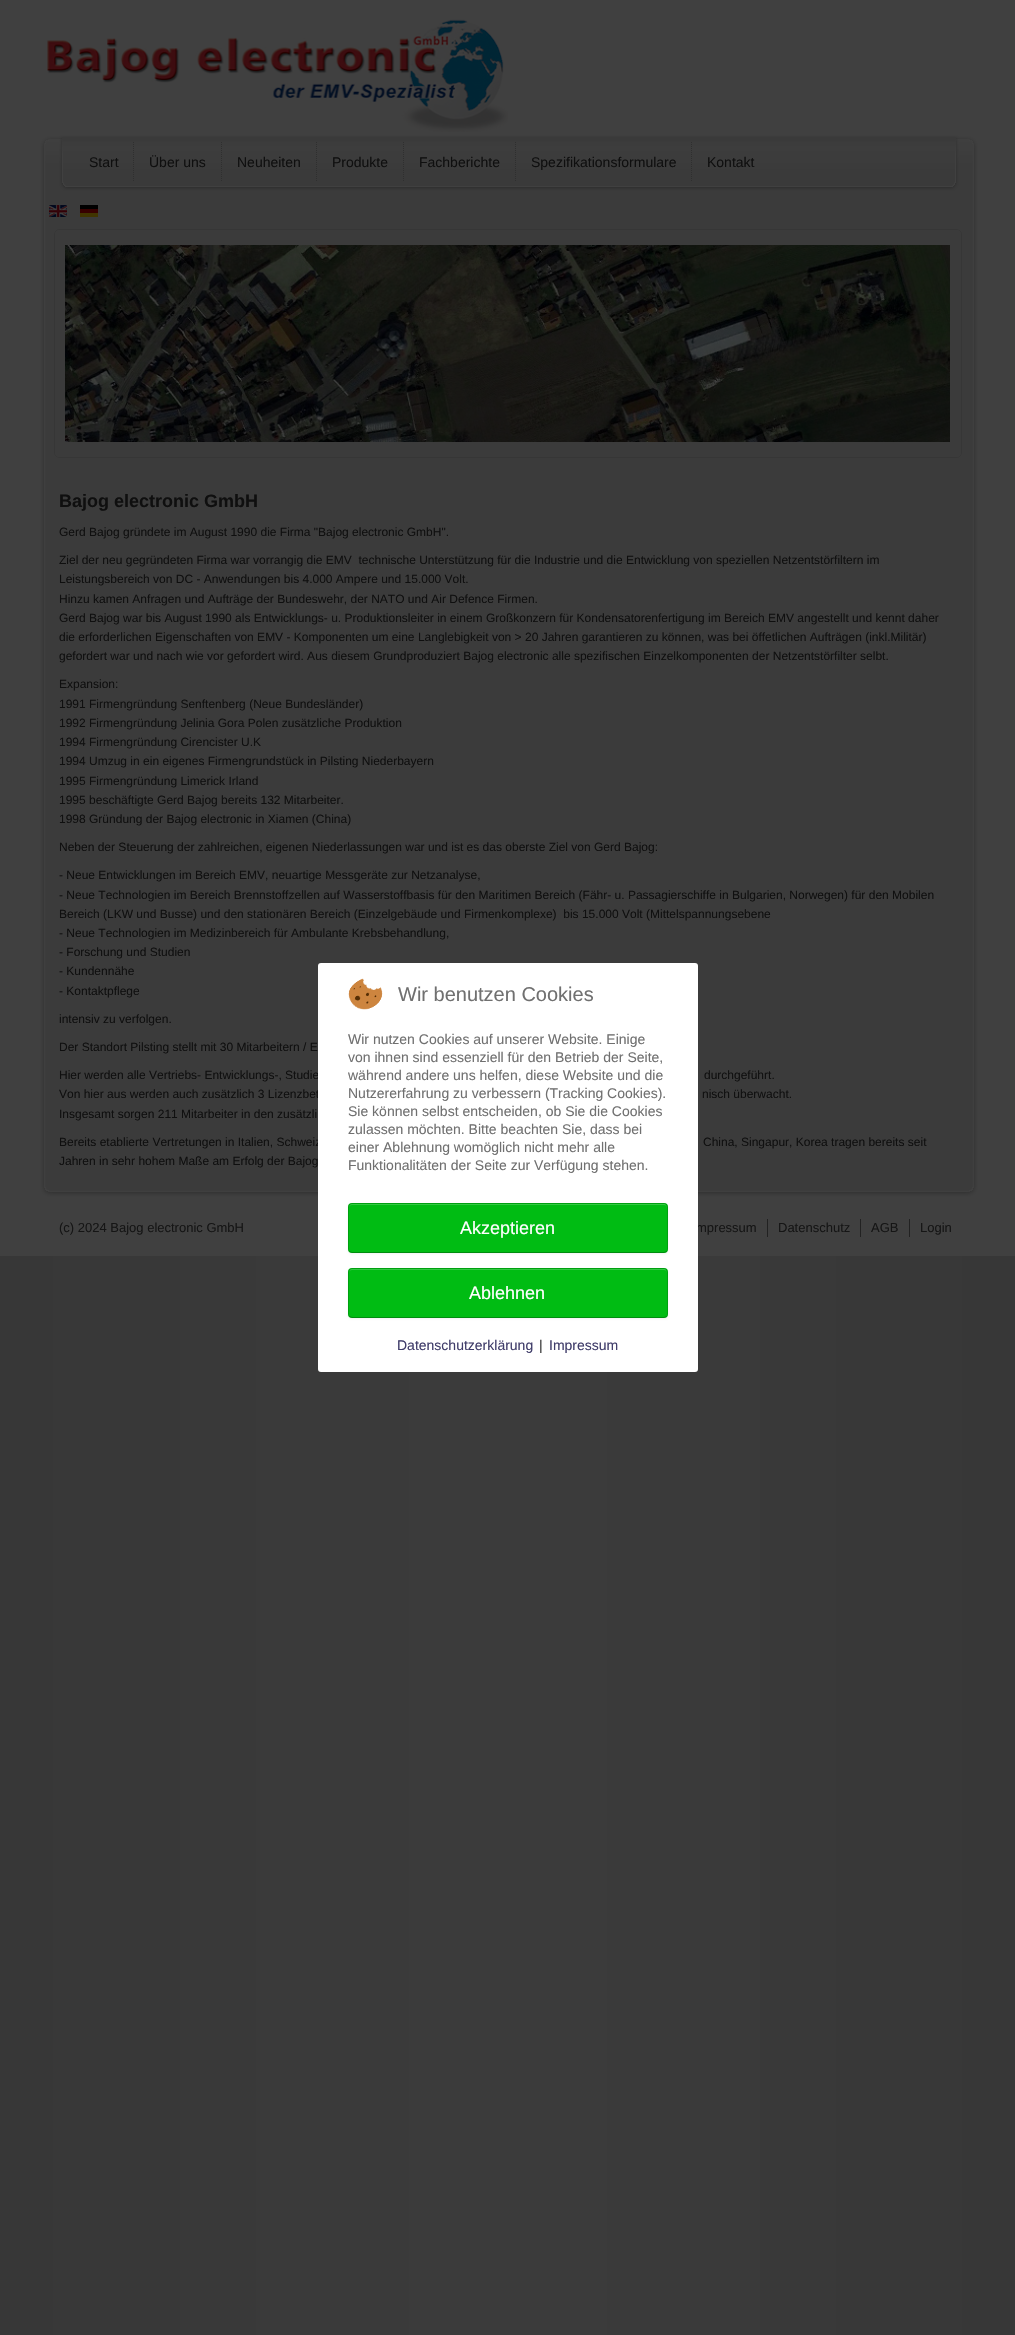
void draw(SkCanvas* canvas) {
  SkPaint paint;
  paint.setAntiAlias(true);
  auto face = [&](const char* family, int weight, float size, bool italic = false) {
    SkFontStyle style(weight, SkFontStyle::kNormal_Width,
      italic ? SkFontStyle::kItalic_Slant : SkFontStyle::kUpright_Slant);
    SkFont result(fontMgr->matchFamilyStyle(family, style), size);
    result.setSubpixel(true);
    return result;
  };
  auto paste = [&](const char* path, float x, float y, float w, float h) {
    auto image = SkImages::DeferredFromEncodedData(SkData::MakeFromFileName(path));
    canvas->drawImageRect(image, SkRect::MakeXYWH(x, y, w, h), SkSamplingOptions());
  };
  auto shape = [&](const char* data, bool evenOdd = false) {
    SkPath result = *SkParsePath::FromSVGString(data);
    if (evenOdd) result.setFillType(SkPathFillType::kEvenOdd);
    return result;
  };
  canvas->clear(0xffffffff);
  paste("img/1.png", 0, 1256, 1015, 1079);
  paint.setColor(0xff404040);
  canvas->drawRect(SkRect::MakeXYWH(0, 0, 1015, 1256), paint);
  paste("img/2.png", 40, 135, 938, 60);
  paste("img/3.png", 47, 19, 461, 113);
  paint.setStroke(true);
  paint.setStrokeWidth(1);
  paint.setColor(0xff2f2f2f);
  paint.setPathEffect(SkDashPathEffect::Make({{1, 1}}, 0));
  canvas->drawPath(shape("M133.5 142V182"), paint);
  paint.setPathEffect(nullptr);
  paint.setPathEffect(SkDashPathEffect::Make({{1, 1}}, 0));
  canvas->drawPath(shape("M221.5 142V182"), paint);
  paint.setPathEffect(nullptr);
  paint.setPathEffect(SkDashPathEffect::Make({{1, 1}}, 0));
  canvas->drawPath(shape("M316.5 142V182"), paint);
  paint.setPathEffect(nullptr);
  paint.setPathEffect(SkDashPathEffect::Make({{1, 1}}, 0));
  canvas->drawPath(shape("M403.5 142V182"), paint);
  paint.setPathEffect(nullptr);
  paint.setPathEffect(SkDashPathEffect::Make({{1, 1}}, 0));
  canvas->drawPath(shape("M515.5 142V182"), paint);
  paint.setPathEffect(nullptr);
  paint.setPathEffect(SkDashPathEffect::Make({{1, 1}}, 0));
  canvas->drawPath(shape("M691.5 142V182"), paint);
  paint.setPathEffect(nullptr);
  paste("img/4.png", 40, 195, 938, 24);
  paste("img/5.png", 49, 205, 18, 12);
  paste("img/6.png", 80, 205, 18, 12);
  paste("img/7.png", 40, 219, 938, 5);
  paste("img/8.png", 40, 224, 938, 239);
  paint.setColor(0xff363636);
  canvas->drawRoundRect(SkRect::MakeXYWH(54.5f, 229.5f, 907, 228), 4.5f, 4.5f, paint);
  paste("img/9.png", 65, 245, 885, 197);
  paste("img/10.png", 40, 463, 938, 717);
  paste("img/11.png", 40, 1180, 938, 17);
  paint.setStroke(false);
  {
    const struct { float x, y, w, h; SkColor color; } items[] = {
      {767, 1219, 1, 18, 0xff222222},
      {860, 1219, 1, 18, 0xff222222},
      {909, 1219, 1, 18, 0xff222222},
    };
    for (auto [x, y, w, h, color] : items) {
      paint.setColor(color);
      canvas->drawRect(SkRect::MakeXYWH(x, y, w, h), paint);
    }
  }
  auto f0 = face("Liberation Sans", 400, 14);
  paint.setColor(0xff0f0f0f);
  {
    const struct { const char* s; float x, y; } items[] = {
      {"Start", 89, 167},
      {"Über uns", 149, 167},
      {"Neuheiten", 237, 167},
      {"Produkte", 332, 167},
      {"Fachberichte", 419, 167},
      {"Spezifikationsformulare", 531, 167},
      {"Kontakt", 707, 167},
    };
    for (auto [s, x, y] : items) {
      canvas->drawString(s, x, y, f0, paint);
    }
  }
  auto f1 = face("Liberation Sans", 700, 18);
  canvas->drawString("Bajog electronic GmbH", 59, 507, f1, paint);
  auto f2 = face("Liberation Sans", 400, 12);
  {
    const struct { const char* s; float x, y; } items[] = {
      {"Gerd Bajog gründete im August 1990 die Firma \"Bajog electronic GmbH\".", 59, 536},
      {"Ziel der neu gegründeten Firma war vorrangig die EMV  technische Unterstützung für die Industrie und die Entwicklung von speziellen Netzentstörfiltern im", 59, 564},
      {"Leistungsbereich von DC - Anwendungen bis 4.000 Ampere und 15.000 Volt.", 59, 583},
      {"Hinzu kamen Anfragen und Aufträge der Bundeswehr, der NATO und Air Defence Firmen.", 59, 603},
      {"Gerd Bajog war bis August 1990 als Entwicklungs- u. Produktionsleiter in einem Großkonzern für Kondensatorenfertigung im Bereich EMV angestellt und kennt daher", 59, 622},
      {"die erforderlichen Eigenschaften von EMV - Komponenten um eine Langlebigkeit von > 20 Jahren garantieren zu können, was bei öffetlichen Aufträgen (inkl.Militär)", 59, 641},
      {"gefordert war und nach wie vor gefordert wird. Aus diesem Grundproduziert Bajog electronic alle spezifischen Einzelkomponenten der Netzentstörfilter selbt.", 59, 660},
      {"Expansion:", 59, 688},
      {"1991 Firmengründung Senftenberg (Neue Bundesländer)", 59, 708},
      {"1992 Firmengründung Jelinia Gora Polen zusätzliche Produktion", 59, 727},
      {"1994 Firmengründung Cirencister U.K", 59, 746},
      {"1994 Umzug in ein eigenes Firmengrundstück in Pilsting Niederbayern", 59, 765},
      {"1995 Firmengründung Limerick Irland", 59, 785},
      {"1995 beschäftigte Gerd Bajog bereits 132 Mitarbeiter.", 59, 804},
      {"1998 Gründung der Bajog electronic in Xiamen (China)", 59, 823},
      {"Neben der Steuerung der zahlreichen, eigenen Niederlassungen war und ist es das oberste Ziel von Gerd Bajog:", 59, 851},
      {"- Neue Entwicklungen im Bereich EMV, neuartige Messgeräte zur Netzanalyse,", 59, 879},
      {"- Neue Technologien im Bereich Brennstoffzellen auf Wasserstoffbasis für den Maritimen Bereich (Fähr- u. Passagierschiffe in Bulgarien, Norwegen) für den Mobilen", 59, 899},
      {"Bereich (LKW und Busse) und den stationären Bereich (Einzelgebäude und Firmenkomplexe)  bis 15.000 Volt (Mittelspannungsebene", 59, 918},
      {"- Neue Technologien im Medizinbereich für Ambulante Krebsbehandlung,", 59, 937},
      {"- Forschung und Studien", 59, 956},
      {"- Kundennähe", 59, 975},
      {"- Kontaktpflege", 59, 995},
      {"intensiv zu verfolgen.", 59, 1023},
      {"Der Standort Pilsting stellt mit 30 Mitarbeitern / E", 59, 1051},
      {"Hier werden alle Vertriebs- Entwicklungs-, Studie", 59, 1079},
      {"durchgeführt.", 704, 1079},
      {"Von hier aus werden auch zusätzlich 3 Lizenzbet", 59, 1098},
      {"nisch überwacht.", 702, 1098},
      {"Insgesamt sorgen 211 Mitarbeiter in den zusätzli", 59, 1118},
      {"Bereits etablierte Vertretungen in Italien, Schweiz", 59, 1146},
      {"China, Singapur, Korea tragen bereits seit", 703, 1146},
      {"Jahren in sehr hohem Maße am Erfolg der Bajog", 59, 1165},
    };
    for (auto [s, x, y] : items) {
      canvas->drawString(s, x, y, f2, paint);
    }
  }
  auto f3 = face("Liberation Sans", 400, 13);
  paint.setColor(0xff151515);
  {
    const struct { const char* s; float x, y; } items[] = {
      {"(c) 2024 Bajog electronic GmbH", 59, 1232},
      {"mpressum", 696, 1232},
      {"Datenschutz", 778, 1232},
      {"AGB", 871, 1232},
      {"Login", 920, 1232},
    };
    for (auto [s, x, y] : items) {
      canvas->drawString(s, x, y, f3, paint);
    }
  }
  paint.setColor(0xffffffff);
  canvas->drawRoundRect(SkRect::MakeXYWH(318, 963, 380, 409), 3, 3, paint);
  paste("img/12.png", 348, 978, 35, 32);
  auto f4 = face("Liberation Sans", 400, 20);
  paint.setColor(0xff707070);
  canvas->drawString("Wir benutzen Cookies", 398, 1001, f4, paint);
  {
    const struct { const char* s; float x, y; } items[] = {
      {"Wir nutzen Cookies auf unserer Website. Einige", 348, 1044},
      {"von ihnen sind essenziell für den Betrieb der Seite,", 348, 1062},
      {"während andere uns helfen, diese Website und die", 348, 1080},
      {"Nutzererfahrung zu verbessern (Tracking Cookies).", 348, 1098},
      {"Sie können selbst entscheiden, ob Sie die Cookies", 348, 1116},
      {"zulassen möchten. Bitte beachten Sie, dass bei", 348, 1134},
      {"einer Ablehnung womöglich nicht mehr alle", 348, 1152},
      {"Funktionalitäten der Seite zur Verfügung stehen.", 348, 1170},
    };
    for (auto [s, x, y] : items) {
      canvas->drawString(s, x, y, f0, paint);
    }
  }
  paint.setColor(0x0d000000);
  paint.setMaskFilter(SkMaskFilter::MakeBlur(kNormal_SkBlurStyle, 1));
  canvas->drawRoundRect(SkRect::MakeXYWH(348, 1204, 320, 50), 4, 4, paint);
  paint.setMaskFilter(nullptr);
  paint.setColor(0xff00bc13);
  canvas->drawRoundRect(SkRect::MakeXYWH(348, 1203, 320, 50), 4, 4, paint);
  paint.setColor(0xff33c942);
  canvas->drawPath(shape("M352 1205H664C666 1205 667 1206 667 1208L666 1205L665 1204H352C350 1204 349 1206 349 1208C349 1206 350 1205 352 1205Z"), paint);
  paint.setStroke(true);
  paint.setColor(0x40000000);
  canvas->drawPath(shape("M666.5 1251.5L664 1252.5H352L349.5 1251.5"), paint);
  paint.setColor(0x26000000);
  canvas->drawPath(shape("M349.5 1251.5C349 1251 348.5 1250 348.5 1249V1207C348.5 1206 349 1205 349.5 1204.5C350 1204 351 1203.5 352 1203.5H664C665 1203.5 666 1204 666.5 1204.5C667 1205 667.5 1206 667.5 1207V1249C667.5 1250 667 1251 666.5 1251.5"), paint);
  auto f5 = face("Liberation Sans", 400, 18);
  paint.setStroke(false);
  paint.setColor(0xffffffff);
  canvas->drawString("Akzeptieren", 460, 1234, f5, paint);
  paint.setColor(0x0d000000);
  paint.setMaskFilter(SkMaskFilter::MakeBlur(kNormal_SkBlurStyle, 1));
  canvas->drawRoundRect(SkRect::MakeXYWH(348, 1269, 320, 50), 4, 4, paint);
  paint.setMaskFilter(nullptr);
  paint.setColor(0xff00bc13);
  canvas->drawRoundRect(SkRect::MakeXYWH(348, 1268, 320, 50), 4, 4, paint);
  paint.setColor(0xff33c942);
  canvas->drawPath(shape("M352 1270H664C666 1270 667 1271 667 1273L666 1270L665 1269H352C350 1269 349 1271 349 1273C349 1271 350 1270 352 1270Z"), paint);
  paint.setStroke(true);
  paint.setColor(0x40000000);
  canvas->drawPath(shape("M666.5 1316.5L664 1317.5H352L349.5 1316.5"), paint);
  paint.setColor(0x26000000);
  canvas->drawPath(shape("M349.5 1316.5C349 1316 348.5 1315 348.5 1314V1272C348.5 1271 349 1270 349.5 1269.5C350 1269 351 1268.5 352 1268.5H664C665 1268.5 666 1269 666.5 1269.5C667 1270 667.5 1271 667.5 1272V1314C667.5 1315 667 1316 666.5 1316.5"), paint);
  paint.setStroke(false);
  paint.setColor(0xffffffff);
  canvas->drawString("Ablehnen", 469, 1299, f5, paint);
  paint.setColor(0xff403d6a);
  canvas->drawString("Datenschutzerklärung", 397, 1350, f0, paint);
  paint.setColor(0xff3a3a3a);
  canvas->drawString("|", 539, 1350, f0, paint);
  paint.setColor(0xff403d6a);
  canvas->drawString("Impressum", 549, 1350, f0, paint);
}
